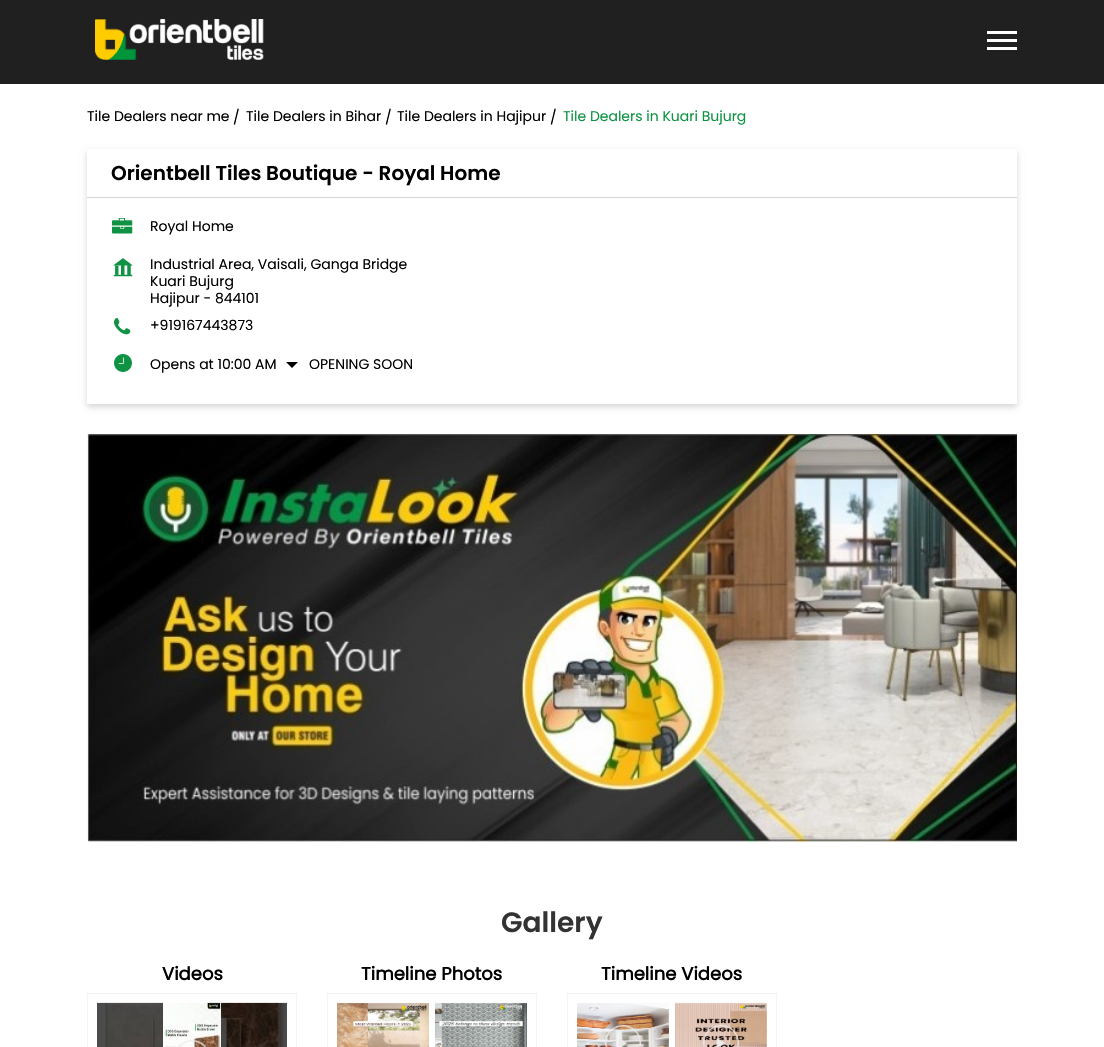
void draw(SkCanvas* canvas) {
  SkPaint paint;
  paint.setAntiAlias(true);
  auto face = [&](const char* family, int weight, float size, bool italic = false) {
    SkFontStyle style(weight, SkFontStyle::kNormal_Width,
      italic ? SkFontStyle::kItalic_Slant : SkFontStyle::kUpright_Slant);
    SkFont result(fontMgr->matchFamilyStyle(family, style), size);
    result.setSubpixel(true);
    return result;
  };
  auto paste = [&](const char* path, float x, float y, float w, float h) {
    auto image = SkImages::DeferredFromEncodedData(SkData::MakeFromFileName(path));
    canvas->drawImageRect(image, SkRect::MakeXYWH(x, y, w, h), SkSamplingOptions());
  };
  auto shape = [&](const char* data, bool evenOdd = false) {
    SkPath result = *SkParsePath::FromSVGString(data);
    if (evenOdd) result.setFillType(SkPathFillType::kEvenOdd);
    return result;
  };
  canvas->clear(0xffffffff);
  paint.setColor(0xff202020);
  canvas->drawRect(SkRect::MakeXYWH(0, 0, 1104, 84), paint);
  paste("img/1.png", 95, 19, 169, 41);
  {
    const struct { float x, y, w, h; SkColor color; } items[] = {
      {987, 39, 30, 3, 0xffffffff},
      {987, 31, 30, 3, 0xffffffff},
      {987, 47, 30, 3, 0xffffffff},
    };
    for (auto [x, y, w, h, color] : items) {
      paint.setColor(color);
      canvas->drawRect(SkRect::MakeXYWH(x, y, w, h), paint);
    }
  }
  canvas->save();
  canvas->clipPath(shape("M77 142H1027V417H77ZM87 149H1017V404H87Z", true), true);
  paint.setColor(0x29000000);
  paint.setMaskFilter(SkMaskFilter::MakeBlur(kNormal_SkBlurStyle, 3));
  canvas->drawRect(SkRect::MakeXYWH(87, 152, 930, 255), paint);
  paint.setMaskFilter(nullptr);
  canvas->restore();
  paint.setColor(0xffd5d5d5);
  canvas->drawRect(SkRect::MakeXYWH(87, 197, 930, 1), paint);
  paste("img/2.png", 112, 218, 21, 16);
  paste("img/3.png", 113, 258, 20, 19);
  paste("img/4.png", 114, 318, 17, 17);
  paste("img/5.png", 114, 354, 18, 18);
  paint.setColor(0xff000000);
  canvas->drawPath(shape("M286 362H298L292 368Z"), paint);
  paste("img/6.png", 87, 434, 930, 408);
  paint.setStroke(true);
  paint.setStrokeWidth(1);
  paint.setColor(0xfff3f3f3);
  canvas->drawRect(SkRect::MakeXYWH(87.5f, 993.5f, 209, 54), paint);
  paste("img/7.png", 97, 1002, 190, 45);
  paste("img/8.png", 178, 1039, 29, 8);
  canvas->drawRect(SkRect::MakeXYWH(327.5f, 993.5f, 209, 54), paint);
  paste("img/9.png", 337, 1002, 92, 45);
  paste("img/10.png", 435, 1002, 92, 45);
  canvas->drawRect(SkRect::MakeXYWH(567.5f, 993.5f, 209, 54), paint);
  paste("img/11.png", 577, 1003, 92, 44);
  paste("img/12.png", 605, 1024, 36, 23);
  paste("img/13.png", 675, 1002, 92, 45);
  paste("img/14.png", 703, 1024, 36, 23);
  auto f0 = face("Poppins", 400, 14);
  paint.setStroke(false);
  paint.setColor(0xff000000);
  {
    const struct { const char* s; float x, y; } items[] = {
      {"Tile Dealers near me", 87, 121},
      {"/", 233, 122},
      {"Tile Dealers in Bihar", 246, 121},
      {"/", 385, 122},
      {"Tile Dealers in Hajipur", 397, 121},
      {"/", 550, 122},
    };
    for (auto [s, x, y] : items) {
      canvas->drawString(s, x, y, f0, paint);
    }
  }
  paint.setColor(0xff0f9243);
  canvas->drawString("Tile Dealers in Kuari Bujurg", 563, 121, f0, paint);
  auto f1 = face("Poppins", 600, 20);
  paint.setColor(0xff000000);
  canvas->drawString("Orientbell Tiles Boutique - Royal Home", 111, 180, f1, paint);
  {
    const struct { const char* s; float x, y; } items[] = {
      {"Royal Home", 150, 231},
      {"Industrial Area, Vaisali, Ganga Bridge", 150, 269},
      {"Kuari Bujurg", 150, 286},
      {"Hajipur - 844101", 150, 303},
      {"+919167443873", 150, 330},
      {"Opens at 10:00 AM", 150, 369},
      {"OPENING SOON", 309, 369},
    };
    for (auto [s, x, y] : items) {
      canvas->drawString(s, x, y, f0, paint);
    }
  }
  auto f2 = face("Poppins", 600, 28);
  paint.setColor(0xff333333);
  canvas->drawString("Gallery", 501, 932, f2, paint);
  auto f3 = face("Poppins", 700, 18);
  paint.setColor(0xff000000);
  {
    const struct { const char* s; float x, y; } items[] = {
      {"Videos", 162, 980},
      {"Timeline Photos", 361, 980},
      {"Timeline Videos", 601, 980},
    };
    for (auto [s, x, y] : items) {
      canvas->drawString(s, x, y, f3, paint);
    }
  }
}
